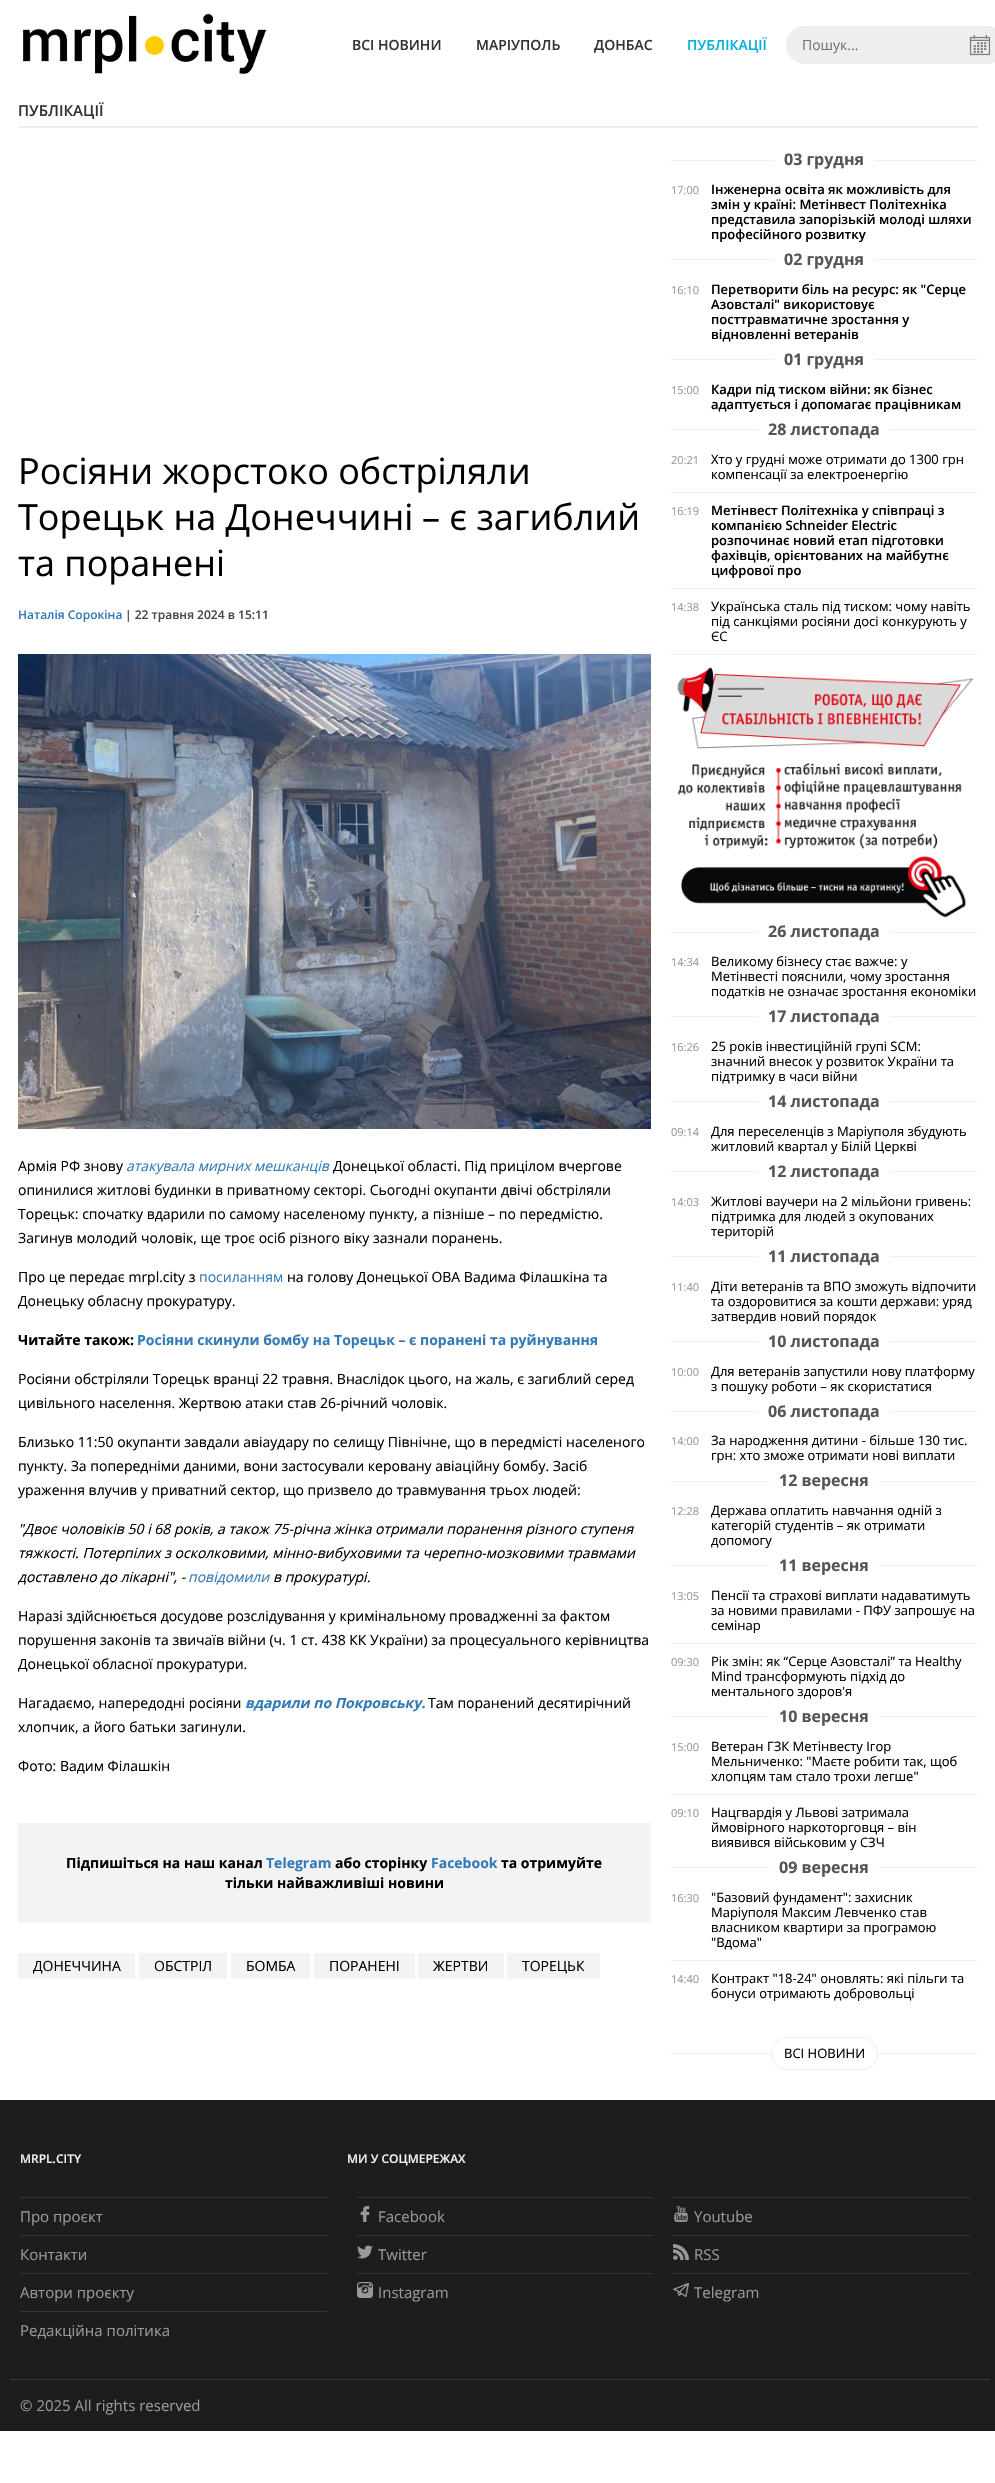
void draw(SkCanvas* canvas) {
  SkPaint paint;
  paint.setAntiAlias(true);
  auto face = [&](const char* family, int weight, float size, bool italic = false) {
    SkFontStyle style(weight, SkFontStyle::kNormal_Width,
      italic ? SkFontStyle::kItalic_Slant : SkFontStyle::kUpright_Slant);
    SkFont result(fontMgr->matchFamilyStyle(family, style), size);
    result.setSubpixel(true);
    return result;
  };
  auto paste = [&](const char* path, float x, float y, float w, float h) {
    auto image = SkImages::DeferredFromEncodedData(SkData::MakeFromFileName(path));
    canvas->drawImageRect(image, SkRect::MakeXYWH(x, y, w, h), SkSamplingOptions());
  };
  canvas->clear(0xffffffff);
  paste("img/1.png", 23, 15, 114, 59);
  paint.setColor(0xffffcc00);
  canvas->drawCircle(154.5f, 45.5f, 9.5f, paint);
  paste("img/2.png", 171, 13, 96, 62);
  paint.setColor(0xffeeeeee);
  canvas->drawRoundRect(SkRect::MakeXYWH(786.5f, 26.5f, 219, 37), 18.5f, 18.5f, paint);
  paint.setStroke(true);
  paint.setStrokeWidth(1);
  canvas->drawRoundRect(SkRect::MakeXYWH(786.5f, 26.5f, 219, 37), 18.5f, 18.5f, paint);
  paste("img/3.png", 969, 34, 22, 22);
  paint.setStroke(false);
  canvas->drawRect(SkRect::MakeXYWH(18, 126, 960, 2), paint);
  paste("img/4.png", 18, 654, 633, 475);
  {
    const struct { float x, y, w, h; SkColor color; } items[] = {
      {18, 1823, 633, 100, 0xfff3f3f3},
      {18, 1953, 117, 26, 0xfff3f3f3},
      {139, 1953, 88, 26, 0xfff3f3f3},
      {231, 1953, 79, 26, 0xfff3f3f3},
      {314, 1953, 101, 26, 0xfff3f3f3},
      {418, 1953, 86, 26, 0xfff3f3f3},
      {507, 1953, 93, 26, 0xfff3f3f3},
      {671, 160, 306, 1, 0xffeeeeee},
      {774, 160, 100, 1, 0xffffffff},
      {671, 259, 306, 1, 0xffeeeeee},
      {774, 259, 100, 1, 0xffffffff},
      {671, 359, 306, 1, 0xffeeeeee},
      {774, 359, 100, 1, 0xffffffff},
      {671, 429, 306, 1, 0xffeeeeee},
      {758, 429, 132, 1, 0xffffffff},
      {671, 492, 306, 1, 0xffeeeeee},
      {671, 588, 306, 1, 0xffeeeeee},
      {671, 654, 306, 1, 0xffeeeeee},
    };
    for (auto [x, y, w, h, color] : items) {
      paint.setColor(color);
      canvas->drawRect(SkRect::MakeXYWH(x, y, w, h), paint);
    }
  }
  paste("img/5.png", 677, 667, 297, 251);
  {
    const struct { float x, y, w, h; SkColor color; } items[] = {
      {671, 932, 306, 1, 0xffeeeeee},
      {758, 932, 132, 1, 0xffffffff},
      {671, 1016, 306, 1, 0xffeeeeee},
      {758, 1016, 132, 1, 0xffffffff},
      {671, 1101, 306, 1, 0xffeeeeee},
      {758, 1101, 132, 1, 0xffffffff},
      {671, 1171, 306, 1, 0xffeeeeee},
      {758, 1171, 132, 1, 0xffffffff},
      {671, 1256, 306, 1, 0xffeeeeee},
      {758, 1256, 132, 1, 0xffffffff},
      {671, 1341, 306, 1, 0xffeeeeee},
      {758, 1341, 132, 1, 0xffffffff},
      {671, 1411, 306, 1, 0xffeeeeee},
      {758, 1411, 132, 1, 0xffffffff},
      {671, 1481, 306, 1, 0xffeeeeee},
      {769, 1481, 110, 1, 0xffffffff},
      {671, 1565, 306, 1, 0xffeeeeee},
      {769, 1565, 110, 1, 0xffffffff},
      {671, 1643, 306, 1, 0xffeeeeee},
      {671, 1716, 306, 1, 0xffeeeeee},
      {769, 1716, 110, 1, 0xffffffff},
      {671, 1794, 306, 1, 0xffeeeeee},
      {671, 1867, 306, 1, 0xffeeeeee},
      {769, 1867, 110, 1, 0xffffffff},
      {671, 1960, 306, 1, 0xffeeeeee},
      {671, 2053, 306, 1, 0xffeeeeee},
    };
    for (auto [x, y, w, h, color] : items) {
      paint.setColor(color);
      canvas->drawRect(SkRect::MakeXYWH(x, y, w, h), paint);
    }
  }
  paint.setColor(0xffffffff);
  canvas->drawRoundRect(SkRect::MakeXYWH(771.5f, 2037.5f, 106, 32), 15.5f, 15.5f, paint);
  paint.setStroke(true);
  paint.setColor(0xffeeeeee);
  canvas->drawRoundRect(SkRect::MakeXYWH(771.5f, 2037.5f, 106, 32), 15.5f, 15.5f, paint);
  paint.setStroke(false);
  {
    const struct { float x, y, w, h; SkColor color; } items[] = {
      {0, 2100, 995, 331, 0xff1d1d1d},
      {20, 2197, 307, 1, 0xff363636},
      {20, 2235, 307, 1, 0xff363636},
      {20, 2273, 307, 1, 0xff363636},
      {20, 2311, 307, 1, 0xff363636},
      {357, 2197, 296, 1, 0xff363636},
    };
    for (auto [x, y, w, h, color] : items) {
      paint.setColor(color);
      canvas->drawRect(SkRect::MakeXYWH(x, y, w, h), paint);
    }
  }
  paste("img/6.png", 360, 2206, 10, 16);
  canvas->drawRect(SkRect::MakeXYWH(357, 2235, 296, 1), paint);
  paste("img/7.png", 357, 2245, 16, 14);
  canvas->drawRect(SkRect::MakeXYWH(357, 2273, 296, 1), paint);
  paste("img/8.png", 357, 2282, 16, 16);
  canvas->drawRect(SkRect::MakeXYWH(673, 2197, 297, 1), paint);
  paste("img/9.png", 674, 2206, 14, 16);
  canvas->drawRect(SkRect::MakeXYWH(673, 2235, 297, 1), paint);
  paste("img/10.png", 673, 2244, 16, 16);
  canvas->drawRect(SkRect::MakeXYWH(673, 2273, 297, 1), paint);
  paste("img/11.png", 673, 2282, 16, 16);
  canvas->drawRect(SkRect::MakeXYWH(10, 2379, 980, 1), paint);
  auto f0 = face("Open Sans", 600, 14);
  paint.setColor(0xff333333);
  {
    const struct { const char* s; float x, y; } items[] = {
      {"ВСІ НОВИНИ", 352, 50},
      {"МАРІУПОЛЬ", 476, 50},
      {"ДОНБАС", 594, 50},
    };
    for (auto [s, x, y] : items) {
      canvas->drawString(s, x, y, f0, paint);
    }
  }
  paint.setColor(0xff00b2db);
  canvas->drawString("ПУБЛІКАЦІЇ", 687, 50, f0, paint);
  auto f1 = face("Open Sans", 400, 14);
  paint.setColor(0xff757575);
  canvas->drawString("Пошук...", 802, 50, f1, paint);
  auto f2 = face("Open Sans", 600, 15);
  paint.setColor(0xff333333);
  canvas->drawString("ПУБЛІКАЦІЇ", 18, 116, f2, paint);
  auto f3 = face("Open Sans", 400, 36);
  paint.setColor(0xff000000);
  canvas->drawString("Росіяни жорстоко обстріляли", 18, 484, f3, paint);
  canvas->save();
  canvas->clipRect(SkRect::MakeXYWH(18, 448, 633, 1345));
  canvas->drawString("Торецьк на Донеччині", 18, 530, f3, paint);
  canvas->restore();
  canvas->drawString("– є загиблий", 422, 530, f3, paint);
  canvas->drawString("та поранені", 18, 576, f3, paint);
  auto f4 = face("Open Sans", 600, 12);
  paint.setColor(0xff337ab7);
  canvas->drawString("Наталія Сорокіна", 18, 619, f4, paint);
  paint.setColor(0xff454545);
  canvas->drawString("| 22 травня 2024 в 15:11", 125, 619, f4, paint);
  paint.setColor(0xff000000);
  canvas->drawString("Армія РФ знову", 18, 1171, f1, paint);
  auto f5 = face("Open Sans", 400, 14, true);
  paint.setColor(0xff337ab7);
  canvas->drawString("атакувала мирних мешканців", 126, 1171, f5, paint);
  paint.setColor(0xff000000);
  {
    const struct { const char* s; float x, y; } items[] = {
      {"Донецької області. Під прицілом вчергове", 333, 1171},
      {"опинилися житлові будинки в приватному секторі. Сьогодні окупанти двічі обстріляли", 18, 1195},
      {"Торецьк: спочатку вдарили по самому населеному пункту, а пізніше – по передмістю.", 18, 1219},
      {"Загинув молодий чоловік, ще троє осіб різного віку зазнали поранень.", 18, 1243},
      {"Про це передає mrpl.city з", 18, 1282},
    };
    for (auto [s, x, y] : items) {
      canvas->drawString(s, x, y, f1, paint);
    }
  }
  paint.setColor(0xff337ab7);
  canvas->drawString("посиланням", 199, 1282, f1, paint);
  paint.setColor(0xff000000);
  canvas->drawString("на голову Донецької ОВА Вадима Філашкіна та", 287, 1282, f1, paint);
  canvas->save();
  canvas->clipRect(SkRect::MakeXYWH(18, 649, 633, 1144));
  canvas->drawString("Донецьку обласну прокуратуру.", 18, 1306, f1, paint);
  canvas->restore();
  auto f6 = face("Open Sans", 700, 14);
  canvas->drawString("Читайте також:", 18, 1345, f6, paint);
  paint.setColor(0xff337ab7);
  canvas->drawString("Росіяни скинули бомбу на Торецьк – є поранені та руйнування", 137, 1345, f6, paint);
  paint.setColor(0xff000000);
  {
    const struct { const char* s; float x, y; } items[] = {
      {"Росіяни обстріляли Торецьк вранці 22 травня. Внаслідок цього, на жаль, є загиблий серед", 18, 1384},
      {"цивільного населення. Жертвою атаки став 26-річний чоловік.", 18, 1408},
      {"Близько 11:50 окупанти завдали авіаудару по селищу Північне, що в передмісті населеного", 18, 1447},
      {"пункту. За попередніми даними, вони застосували керовану авіаційну бомбу. Засіб", 18, 1471},
    };
    for (auto [s, x, y] : items) {
      canvas->drawString(s, x, y, f1, paint);
    }
  }
  canvas->save();
  canvas->clipRect(SkRect::MakeXYWH(18, 649, 633, 1144));
  canvas->drawString("ураження влучив у приватний сектор, що призвело до травмування трьох людей:", 18, 1495, f1, paint);
  canvas->restore();
  canvas->drawString("\"Двоє чоловіків 50 і 68 років, а також 75-річна жінка отримали поранення різного ступеня", 18, 1534, f5, paint);
  canvas->drawString("тяжкості. Потерпілих з осколковими, мінно-вибуховими та черепно-мозковими травмами", 18, 1558, f5, paint);
  canvas->save();
  canvas->clipRect(SkRect::MakeXYWH(18, 649, 633, 1144));
  canvas->drawString("доставлено до лікарні\", -", 18, 1582, f5, paint);
  canvas->restore();
  paint.setColor(0xff337ab7);
  canvas->drawString("повідомили", 188, 1582, f5, paint);
  paint.setColor(0xff000000);
  canvas->drawString("в прокуратурі.", 273, 1582, f5, paint);
  canvas->drawString("Наразі здійснюється досудове розслідування у кримінальному провадженні за фактом", 18, 1621, f1, paint);
  canvas->drawString("порушення законів та звичаїв війни (ч. 1 ст. 438 КК України) за процесуального керівництва", 18, 1645, f1, paint);
  canvas->save();
  canvas->clipRect(SkRect::MakeXYWH(18, 649, 633, 1144));
  canvas->drawString("Донецької обласної прокуратури.", 18, 1669, f1, paint);
  canvas->restore();
  canvas->drawString("Нагадаємо, напередодні росіяни", 18, 1708, f1, paint);
  auto f7 = face("Open Sans", 700, 14, true);
  paint.setColor(0xff337ab7);
  canvas->drawString("вдарили по Покровську.", 245, 1708, f7, paint);
  paint.setColor(0xff000000);
  {
    const struct { const char* s; float x, y; } items[] = {
      {"Там поранений десятирічний", 428, 1708},
      {"хлопчик, а його батьки загинули.", 18, 1732},
      {"Фото: Вадим Філашкін", 18, 1771},
    };
    for (auto [s, x, y] : items) {
      canvas->drawString(s, x, y, f1, paint);
    }
  }
  canvas->drawString("Підпишіться на наш канал", 66, 1868, f6, paint);
  paint.setColor(0xff337ab7);
  canvas->drawString("Telegram", 266, 1868, f6, paint);
  paint.setColor(0xff000000);
  canvas->drawString("або сторінку", 335, 1868, f6, paint);
  paint.setColor(0xff337ab7);
  canvas->drawString("Facebook", 431, 1868, f6, paint);
  paint.setColor(0xff000000);
  canvas->drawString("та отримуйте", 501, 1868, f6, paint);
  canvas->drawString("тільки найважливіші новини", 225, 1888, f6, paint);
  {
    const struct { const char* s; float x, y; } items[] = {
      {"ДОНЕЧЧИНА", 33, 1971},
      {"ОБСТРІЛ", 154, 1971},
      {"БОМБА", 246, 1971},
      {"ПОРАНЕНІ", 329, 1971},
      {"ЖЕРТВИ", 433, 1971},
      {"ТОРЕЦЬК", 522, 1971},
    };
    for (auto [s, x, y] : items) {
      canvas->drawString(s, x, y, f1, paint);
    }
  }
  auto f8 = face("Open Sans", 700, 16);
  paint.setColor(0xff555555);
  canvas->drawString("03 грудня", 784, 165, f8, paint);
  auto f9 = face("Open Sans", 400, 11);
  paint.setColor(0xff999999);
  canvas->drawString("17:00", 671, 194, f9, paint);
  auto f10 = face("Open Sans", 600, 13);
  paint.setColor(0xff000000);
  {
    const struct { const char* s; float x, y; } items[] = {
      {"Інженерна освіта як можливість для", 711, 194},
      {"змін у країні: Метінвест Політехніка", 711, 209},
      {"представила запорізькій молоді шляхи", 711, 224},
      {"професійного розвитку", 711, 239},
    };
    for (auto [s, x, y] : items) {
      canvas->drawString(s, x, y, f10, paint);
    }
  }
  paint.setColor(0xff555555);
  canvas->drawString("02 грудня", 784, 265, f8, paint);
  paint.setColor(0xff999999);
  canvas->drawString("16:10", 671, 294, f9, paint);
  paint.setColor(0xff000000);
  {
    const struct { const char* s; float x, y; } items[] = {
      {"Перетворити біль на ресурс: як \"Серце", 711, 294},
      {"Азовсталі\" використовує", 711, 309},
      {"посттравматичне зростання у", 711, 324},
      {"відновленні ветеранів", 711, 339},
    };
    for (auto [s, x, y] : items) {
      canvas->drawString(s, x, y, f10, paint);
    }
  }
  paint.setColor(0xff555555);
  canvas->drawString("01 грудня", 784, 365, f8, paint);
  paint.setColor(0xff999999);
  canvas->drawString("15:00", 671, 394, f9, paint);
  paint.setColor(0xff000000);
  canvas->drawString("Кадри під тиском війни: як бізнес", 711, 394, f10, paint);
  canvas->drawString("адаптується і допомагає працівникам", 711, 409, f10, paint);
  paint.setColor(0xff555555);
  canvas->drawString("28 листопада", 768, 435, f8, paint);
  paint.setColor(0xff999999);
  canvas->drawString("20:21", 671, 464, f9, paint);
  auto f11 = face("Open Sans", 400, 13);
  paint.setColor(0xff000000);
  canvas->drawString("Хто у грудні може отримати до 1300 грн", 711, 464, f11, paint);
  canvas->drawString("компенсації за електроенергію", 711, 479, f11, paint);
  paint.setColor(0xff999999);
  canvas->drawString("16:19", 671, 515, f9, paint);
  paint.setColor(0xff000000);
  {
    const struct { const char* s; float x, y; } items[] = {
      {"Метінвест Політехніка у співпраці з", 711, 515},
      {"компанією Schneider Electric", 711, 530},
      {"розпочинає новий етап підготовки", 711, 545},
      {"фахівців, орієнтованих на майбутнє", 711, 560},
      {"цифрової про", 711, 575},
    };
    for (auto [s, x, y] : items) {
      canvas->drawString(s, x, y, f10, paint);
    }
  }
  paint.setColor(0xff999999);
  canvas->drawString("14:38", 671, 611, f9, paint);
  paint.setColor(0xff000000);
  {
    const struct { const char* s; float x, y; } items[] = {
      {"Українська сталь під тиском: чому навіть", 711, 611},
      {"під санкціями росіяни досі конкурують у", 711, 626},
      {"ЄС", 711, 641},
    };
    for (auto [s, x, y] : items) {
      canvas->drawString(s, x, y, f11, paint);
    }
  }
  paint.setColor(0xff555555);
  canvas->drawString("26 листопада", 768, 937, f8, paint);
  paint.setColor(0xff999999);
  canvas->drawString("14:34", 671, 966, f9, paint);
  paint.setColor(0xff000000);
  {
    const struct { const char* s; float x, y; } items[] = {
      {"Великому бізнесу стає важче: у", 711, 966},
      {"Метінвесті пояснили, чому зростання", 711, 981},
      {"податків не означає зростання економіки", 711, 996},
    };
    for (auto [s, x, y] : items) {
      canvas->drawString(s, x, y, f11, paint);
    }
  }
  paint.setColor(0xff555555);
  canvas->drawString("17 листопада", 768, 1022, f8, paint);
  paint.setColor(0xff999999);
  canvas->drawString("16:26", 671, 1051, f9, paint);
  paint.setColor(0xff000000);
  {
    const struct { const char* s; float x, y; } items[] = {
      {"25 років інвестиційній групі SCM:", 711, 1051},
      {"значний внесок у розвиток України та", 711, 1066},
      {"підтримку в часи війни", 711, 1081},
    };
    for (auto [s, x, y] : items) {
      canvas->drawString(s, x, y, f11, paint);
    }
  }
  paint.setColor(0xff555555);
  canvas->drawString("14 листопада", 768, 1107, f8, paint);
  paint.setColor(0xff999999);
  canvas->drawString("09:14", 671, 1136, f9, paint);
  paint.setColor(0xff000000);
  canvas->drawString("Для переселенців з Маріуполя збудують", 711, 1136, f11, paint);
  canvas->drawString("житловий квартал у Білій Церкві", 711, 1151, f11, paint);
  paint.setColor(0xff555555);
  canvas->drawString("12 листопада", 768, 1177, f8, paint);
  paint.setColor(0xff999999);
  canvas->drawString("14:03", 671, 1206, f9, paint);
  paint.setColor(0xff000000);
  {
    const struct { const char* s; float x, y; } items[] = {
      {"Житлові ваучери на 2 мільйони гривень:", 711, 1206},
      {"підтримка для людей з окупованих", 711, 1221},
      {"територій", 711, 1236},
    };
    for (auto [s, x, y] : items) {
      canvas->drawString(s, x, y, f11, paint);
    }
  }
  paint.setColor(0xff555555);
  canvas->drawString("11 листопада", 768, 1262, f8, paint);
  paint.setColor(0xff999999);
  canvas->drawString("11:40", 671, 1291, f9, paint);
  paint.setColor(0xff000000);
  {
    const struct { const char* s; float x, y; } items[] = {
      {"Діти ветеранів та ВПО зможуть відпочити", 711, 1291},
      {"та оздоровитися за кошти держави: уряд", 711, 1306},
      {"затвердив новий порядок", 711, 1321},
    };
    for (auto [s, x, y] : items) {
      canvas->drawString(s, x, y, f11, paint);
    }
  }
  paint.setColor(0xff555555);
  canvas->drawString("10 листопада", 768, 1347, f8, paint);
  paint.setColor(0xff999999);
  canvas->drawString("10:00", 671, 1376, f9, paint);
  paint.setColor(0xff000000);
  canvas->drawString("Для ветеранів запустили нову платформу", 711, 1376, f11, paint);
  canvas->drawString("з пошуку роботи – як скористатися", 711, 1391, f11, paint);
  paint.setColor(0xff555555);
  canvas->drawString("06 листопада", 768, 1417, f8, paint);
  paint.setColor(0xff999999);
  canvas->drawString("14:00", 671, 1445, f9, paint);
  paint.setColor(0xff000000);
  canvas->drawString("За народження дитини - більше 130 тис.", 711, 1445, f11, paint);
  canvas->drawString("грн: хто зможе отримати нові виплати", 711, 1460, f11, paint);
  paint.setColor(0xff555555);
  canvas->drawString("12 вересня", 779, 1486, f8, paint);
  paint.setColor(0xff999999);
  canvas->drawString("12:28", 671, 1515, f9, paint);
  paint.setColor(0xff000000);
  {
    const struct { const char* s; float x, y; } items[] = {
      {"Держава оплатить навчання одній з", 711, 1515},
      {"категорій студентів – як отримати", 711, 1530},
      {"допомогу", 711, 1545},
    };
    for (auto [s, x, y] : items) {
      canvas->drawString(s, x, y, f11, paint);
    }
  }
  paint.setColor(0xff555555);
  canvas->drawString("11 вересня", 779, 1571, f8, paint);
  paint.setColor(0xff999999);
  canvas->drawString("13:05", 671, 1600, f9, paint);
  paint.setColor(0xff000000);
  {
    const struct { const char* s; float x, y; } items[] = {
      {"Пенсії та страхові виплати надаватимуть", 711, 1600},
      {"за новими правилами - ПФУ запрошує на", 711, 1615},
      {"семінар", 711, 1630},
    };
    for (auto [s, x, y] : items) {
      canvas->drawString(s, x, y, f11, paint);
    }
  }
  paint.setColor(0xff999999);
  canvas->drawString("09:30", 671, 1666, f9, paint);
  paint.setColor(0xff000000);
  {
    const struct { const char* s; float x, y; } items[] = {
      {"Рік змін: як “Серце Азовсталі” та Healthy", 711, 1666},
      {"Mind трансформують підхід до", 711, 1681},
      {"ментального здоров'я", 711, 1696},
    };
    for (auto [s, x, y] : items) {
      canvas->drawString(s, x, y, f11, paint);
    }
  }
  paint.setColor(0xff555555);
  canvas->drawString("10 вересня", 779, 1722, f8, paint);
  paint.setColor(0xff999999);
  canvas->drawString("15:00", 671, 1751, f9, paint);
  paint.setColor(0xff000000);
  {
    const struct { const char* s; float x, y; } items[] = {
      {"Ветеран ГЗК Метінвесту Ігор", 711, 1751},
      {"Мельниченко: \"Маєте робити так, щоб", 711, 1766},
      {"хлопцям там стало трохи легше\"", 711, 1781},
    };
    for (auto [s, x, y] : items) {
      canvas->drawString(s, x, y, f11, paint);
    }
  }
  paint.setColor(0xff999999);
  canvas->drawString("09:10", 671, 1817, f9, paint);
  paint.setColor(0xff000000);
  {
    const struct { const char* s; float x, y; } items[] = {
      {"Нацгвардія у Львові затримала", 711, 1817},
      {"ймовірного наркоторговця – він", 711, 1832},
      {"виявився військовим у СЗЧ", 711, 1847},
    };
    for (auto [s, x, y] : items) {
      canvas->drawString(s, x, y, f11, paint);
    }
  }
  paint.setColor(0xff555555);
  canvas->drawString("09 вересня", 779, 1873, f8, paint);
  paint.setColor(0xff999999);
  canvas->drawString("16:30", 671, 1902, f9, paint);
  paint.setColor(0xff000000);
  {
    const struct { const char* s; float x, y; } items[] = {
      {"\"Базовий фундамент\": захисник", 711, 1902},
      {"Маріуполя Максим Левченко став", 711, 1917},
      {"власником квартири за програмою", 711, 1932},
      {"\"Вдома\"", 711, 1947},
    };
    for (auto [s, x, y] : items) {
      canvas->drawString(s, x, y, f11, paint);
    }
  }
  paint.setColor(0xff999999);
  canvas->drawString("14:40", 671, 1983, f9, paint);
  paint.setColor(0xff000000);
  {
    const struct { const char* s; float x, y; } items[] = {
      {"Контракт \"18-24\" оновлять: які пільги та", 711, 1983},
      {"бонуси отримають добровольці", 711, 1998},
      {"ВСІ НОВИНИ", 784, 2058},
    };
    for (auto [s, x, y] : items) {
      canvas->drawString(s, x, y, f11, paint);
    }
  }
  paint.setColor(0xfff1f1f1);
  canvas->drawString("MRPL.CITY", 20, 2163, f4, paint);
  auto f12 = face("Open Sans", 400, 15);
  paint.setColor(0xff999999);
  {
    const struct { const char* s; float x, y; } items[] = {
      {"Про проєкт", 20, 2222},
      {"Контакти", 20, 2260},
      {"Автори проєкту", 20, 2298},
      {"Редакційна політика", 20, 2336},
    };
    for (auto [s, x, y] : items) {
      canvas->drawString(s, x, y, f12, paint);
    }
  }
  paint.setColor(0xfff1f1f1);
  canvas->drawString("МИ У СОЦМЕРЕЖАХ", 347, 2163, f4, paint);
  paint.setColor(0xff999999);
  {
    const struct { const char* s; float x, y; } items[] = {
      {"Facebook", 378, 2222},
      {"Twitter", 378, 2260},
      {"Instagram", 378, 2298},
      {"Youtube", 694, 2222},
      {"RSS", 694, 2260},
      {"Telegram", 694, 2298},
      {"© 2025 All rights reserved", 20, 2411},
    };
    for (auto [s, x, y] : items) {
      canvas->drawString(s, x, y, f12, paint);
    }
  }
}
